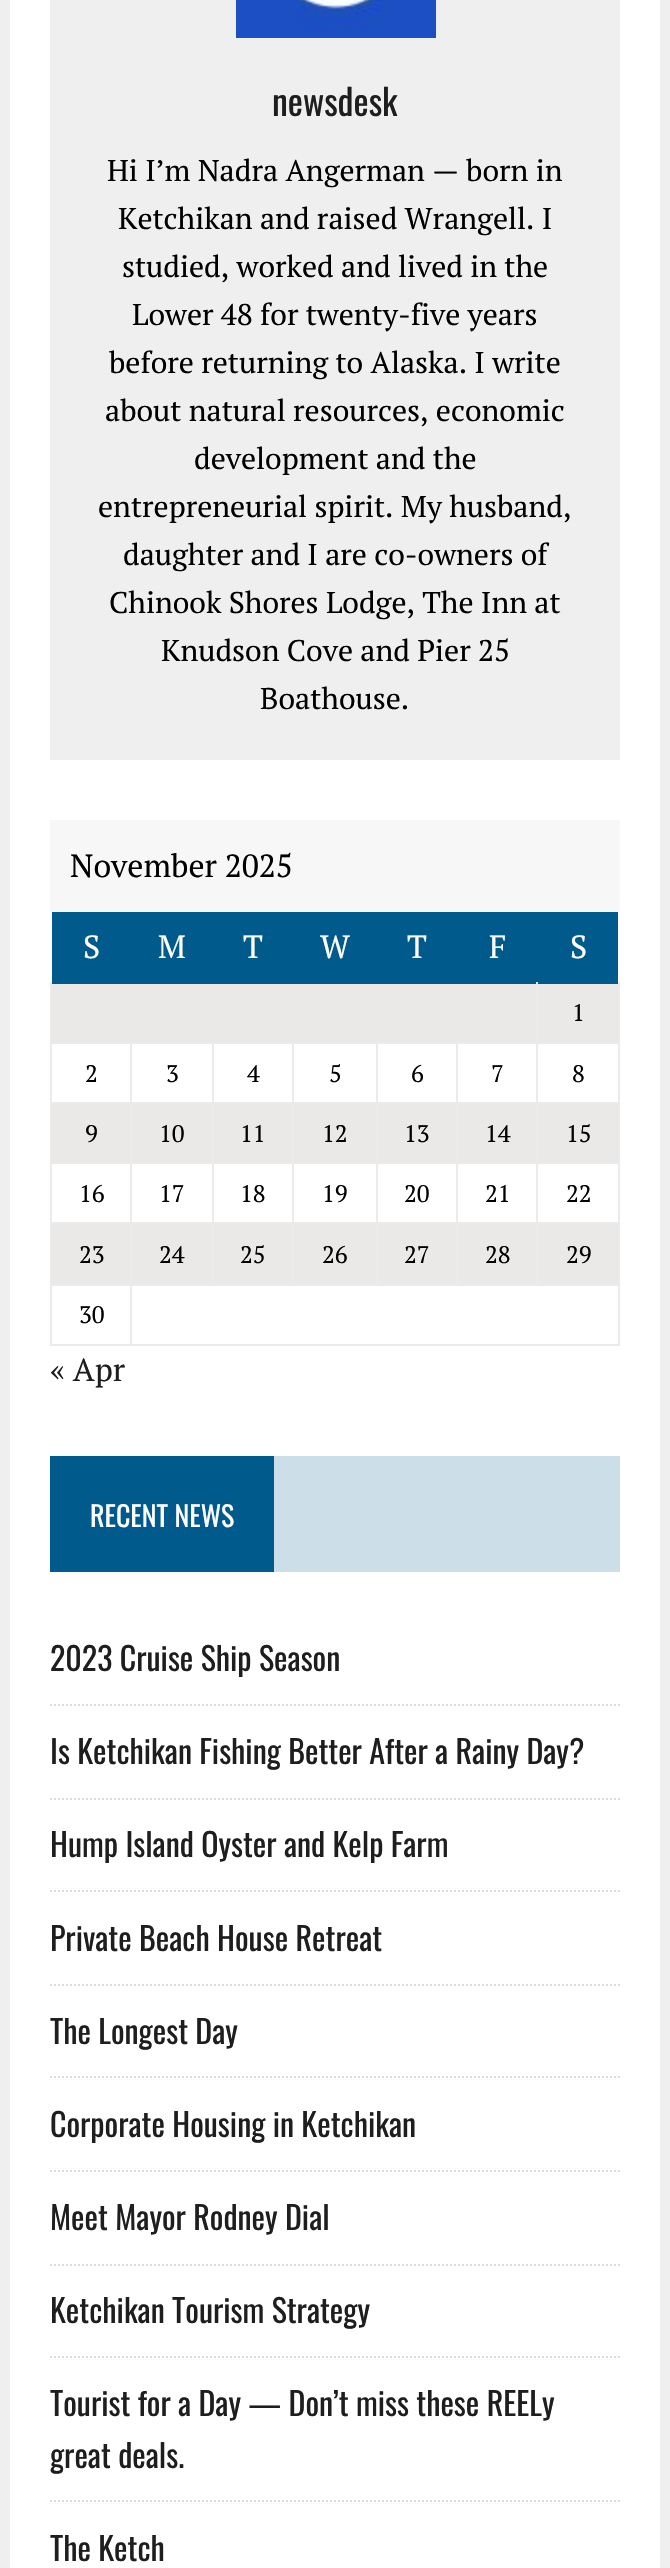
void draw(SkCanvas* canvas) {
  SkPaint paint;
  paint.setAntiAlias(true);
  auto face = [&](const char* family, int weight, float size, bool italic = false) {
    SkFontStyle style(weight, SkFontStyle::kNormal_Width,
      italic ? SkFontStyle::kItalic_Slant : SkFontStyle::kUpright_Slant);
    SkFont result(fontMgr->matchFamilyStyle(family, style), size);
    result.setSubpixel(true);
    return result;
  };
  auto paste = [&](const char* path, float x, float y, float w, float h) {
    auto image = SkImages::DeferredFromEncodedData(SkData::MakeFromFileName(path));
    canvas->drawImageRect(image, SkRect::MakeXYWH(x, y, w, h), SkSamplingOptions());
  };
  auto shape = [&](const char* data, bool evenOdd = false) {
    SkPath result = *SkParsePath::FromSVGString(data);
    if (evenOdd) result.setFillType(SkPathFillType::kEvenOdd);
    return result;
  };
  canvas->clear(0xffefefef);
  paint.setColor(0xffffffff);
  canvas->drawRect(SkRect::MakeXYWH(10, 0, 650, 2568), paint);
  paint.setColor(0xffefefef);
  canvas->drawRect(SkRect::MakeXYWH(50, 0, 570, 760), paint);
  paste("img/1.png", 236, 0, 200, 38);
  {
    const struct { float x, y, w, h; SkColor color; } items[] = {
      {50, 820, 570, 92, 0xfff7f7f7},
      {52, 912, 566, 72, 0xff005a8c},
      {52, 984, 566, 58, 0xffeae9e8},
      {52, 1104, 566, 58, 0xffeae9e8},
      {52, 1224, 566, 60, 0xffeae9e8},
      {618, 982, 2, 364, 0xffebebeb},
      {536, 1284, 84, 2, 0xffebebeb},
      {536, 1222, 2, 64, 0xffebebeb},
      {536, 1222, 84, 2, 0xffebebeb},
      {536, 1162, 2, 62, 0xffebebeb},
      {536, 1162, 84, 2, 0xffebebeb},
      {536, 1102, 2, 62, 0xffebebeb},
      {536, 1102, 84, 2, 0xffebebeb},
      {536, 1042, 2, 62, 0xffebebeb},
      {536, 1042, 84, 2, 0xffebebeb},
      {536, 982, 2, 62, 0xffebebeb},
      {456, 1284, 82, 2, 0xffebebeb},
      {456, 1222, 2, 64, 0xffebebeb},
      {456, 1222, 82, 2, 0xffebebeb},
      {456, 1162, 2, 62, 0xffebebeb},
      {456, 1162, 82, 2, 0xffebebeb},
      {456, 1102, 2, 62, 0xffebebeb},
      {456, 1102, 82, 2, 0xffebebeb},
      {456, 1042, 2, 62, 0xffebebeb},
      {376, 1284, 82, 2, 0xffebebeb},
      {376, 1222, 2, 64, 0xffebebeb},
      {376, 1222, 82, 2, 0xffebebeb},
      {376, 1162, 2, 62, 0xffebebeb},
      {376, 1162, 82, 2, 0xffebebeb},
      {376, 1102, 2, 62, 0xffebebeb},
      {376, 1102, 82, 2, 0xffebebeb},
      {376, 1042, 2, 62, 0xffebebeb},
      {292, 1284, 86, 2, 0xffebebeb},
      {292, 1222, 2, 64, 0xffebebeb},
      {292, 1222, 86, 2, 0xffebebeb},
      {292, 1162, 2, 62, 0xffebebeb},
      {292, 1162, 86, 2, 0xffebebeb},
      {292, 1102, 2, 62, 0xffebebeb},
      {292, 1102, 86, 2, 0xffebebeb},
      {292, 1042, 2, 62, 0xffebebeb},
      {212, 1284, 82, 2, 0xffebebeb},
      {212, 1222, 2, 64, 0xffebebeb},
      {212, 1222, 82, 2, 0xffebebeb},
      {212, 1162, 2, 62, 0xffebebeb},
      {212, 1162, 82, 2, 0xffebebeb},
      {212, 1102, 2, 62, 0xffebebeb},
      {212, 1102, 82, 2, 0xffebebeb},
      {212, 1042, 2, 62, 0xffebebeb},
      {130, 1344, 490, 2, 0xffebebeb},
      {130, 1284, 2, 62, 0xffebebeb},
      {130, 1284, 84, 2, 0xffebebeb},
      {130, 1222, 2, 64, 0xffebebeb},
      {130, 1222, 84, 2, 0xffebebeb},
      {130, 1162, 2, 62, 0xffebebeb},
      {130, 1162, 84, 2, 0xffebebeb},
      {130, 1102, 2, 62, 0xffebebeb},
      {130, 1102, 84, 2, 0xffebebeb},
      {130, 1042, 2, 62, 0xffebebeb},
      {50, 1344, 82, 2, 0xffebebeb},
      {50, 1284, 2, 62, 0xffebebeb},
      {50, 1284, 82, 2, 0xffebebeb},
      {50, 1222, 2, 64, 0xffebebeb},
      {50, 1222, 82, 2, 0xffebebeb},
      {50, 1162, 2, 62, 0xffebebeb},
      {50, 1162, 82, 2, 0xffebebeb},
      {50, 1102, 2, 62, 0xffebebeb},
      {50, 1102, 82, 2, 0xffebebeb},
      {50, 1042, 2, 62, 0xffebebeb},
      {50, 1042, 488, 2, 0xffebebeb},
      {50, 982, 2, 62, 0xffebebeb},
      {274, 1456, 346, 116, 0xffccdee8},
      {50, 1456, 224, 116, 0xff005a8c},
    };
    for (auto [x, y, w, h, color] : items) {
      paint.setColor(color);
      canvas->drawRect(SkRect::MakeXYWH(x, y, w, h), paint);
    }
  }
  paint.setStroke(true);
  paint.setStrokeWidth(2);
  paint.setColor(0xffdcdcdc);
  paint.setPathEffect(SkDashPathEffect::Make({{2, 2}}, 0));
  canvas->drawPath(shape("M50 1705H620"), paint);
  paint.setPathEffect(nullptr);
  paint.setPathEffect(SkDashPathEffect::Make({{2, 2}}, 0));
  canvas->drawPath(shape("M50 1799H620"), paint);
  paint.setPathEffect(nullptr);
  paint.setPathEffect(SkDashPathEffect::Make({{2, 2}}, 0));
  canvas->drawPath(shape("M50 1891H620"), paint);
  paint.setPathEffect(nullptr);
  paint.setPathEffect(SkDashPathEffect::Make({{2, 2}}, 0));
  canvas->drawPath(shape("M50 1985H620"), paint);
  paint.setPathEffect(nullptr);
  paint.setPathEffect(SkDashPathEffect::Make({{2, 2}}, 0));
  canvas->drawPath(shape("M50 2077H620"), paint);
  paint.setPathEffect(nullptr);
  paint.setPathEffect(SkDashPathEffect::Make({{2, 2}}, 0));
  canvas->drawPath(shape("M50 2171H620"), paint);
  paint.setPathEffect(nullptr);
  paint.setPathEffect(SkDashPathEffect::Make({{2, 2}}, 0));
  canvas->drawPath(shape("M50 2265H620"), paint);
  paint.setPathEffect(nullptr);
  paint.setPathEffect(SkDashPathEffect::Make({{2, 2}}, 0));
  canvas->drawPath(shape("M50 2357H620"), paint);
  paint.setPathEffect(nullptr);
  paint.setPathEffect(SkDashPathEffect::Make({{2, 2}}, 0));
  canvas->drawPath(shape("M50 2501H620"), paint);
  paint.setPathEffect(nullptr);
  auto f0 = face("Oswald", 400, 36);
  paint.setStroke(false);
  paint.setColor(0xff1f1e1e);
  canvas->drawString("newsdesk", 272, 116, f0, paint);
  auto f1 = face("PT Serif", 400, 30);
  paint.setColor(0xff000000);
  {
    const struct { const char* s; float x, y; } items[] = {
      {"Hi I’m Nadra Angerman — born in", 107, 181},
      {"Ketchikan and raised Wrangell. I", 118, 229},
      {"studied, worked and lived in the", 122, 277},
      {"Lower 48 for twenty-five years", 132, 325},
      {"before returning to Alaska. I write", 109, 373},
      {"about natural resources, economic", 105, 421},
      {"development and the", 194, 469},
      {"entrepreneurial spirit. My husband,", 98, 517},
      {"daughter and I are co-owners of", 123, 565},
      {"Chinook Shores Lodge, The Inn at", 109, 613},
      {"Knudson Cove and Pier 25", 161, 661},
      {"Boathouse.", 260, 709},
    };
    for (auto [s, x, y] : items) {
      canvas->drawString(s, x, y, f1, paint);
    }
  }
  auto f2 = face("PT Serif", 400, 32);
  canvas->drawString("November 2025", 70, 877, f2, paint);
  paint.setColor(0xffffffff);
  {
    const struct { const char* s; float x, y; } items[] = {
      {"S", 83, 958},
      {"M", 158, 958},
      {"T", 243, 958},
      {"W", 320, 958},
      {"T", 407, 958},
      {"F", 489, 958},
      {"S", 570, 958},
    };
    for (auto [s, x, y] : items) {
      canvas->drawString(s, x, y, f2, paint);
    }
  }
  auto f3 = face("PT Serif", 400, 24);
  paint.setColor(0xff000000);
  {
    const struct { const char* s; float x, y; } items[] = {
      {"1", 572, 1021},
      {"2", 85, 1082},
      {"3", 166, 1082},
      {"4", 247, 1082},
      {"5", 329, 1082},
      {"6", 411, 1082},
      {"7", 491, 1082},
      {"8", 572, 1082},
      {"9", 85, 1142},
      {"10", 159, 1142},
      {"11", 240, 1142},
      {"12", 322, 1142},
      {"13", 404, 1142},
      {"14", 485, 1142},
      {"15", 566, 1142},
      {"16", 79, 1202},
      {"17", 159, 1202},
      {"18", 240, 1202},
      {"19", 322, 1202},
      {"20", 404, 1202},
      {"21", 485, 1202},
      {"22", 566, 1202},
      {"23", 79, 1263},
      {"24", 159, 1263},
      {"25", 240, 1263},
      {"26", 322, 1263},
      {"27", 404, 1263},
      {"28", 485, 1263},
      {"29", 566, 1263},
      {"30", 79, 1323},
    };
    for (auto [s, x, y] : items) {
      canvas->drawString(s, x, y, f3, paint);
    }
  }
  paint.setColor(0xff1f1e1e);
  canvas->drawString("« Apr", 50, 1381, f2, paint);
  auto f4 = face("Oswald", 400, 28);
  paint.setColor(0xffffffff);
  canvas->drawString("RECENT NEWS", 90, 1527, f4, paint);
  auto f5 = face("Oswald", 400, 32);
  paint.setColor(0xff1f1e1e);
  {
    const struct { const char* s; float x, y; } items[] = {
      {"2023 Cruise Ship Season", 50, 1671},
      {"Is Ketchikan Fishing Better After a Rainy Day?", 50, 1764},
      {"Hump Island Oyster and Kelp Farm", 50, 1857},
      {"Private Beach House Retreat", 50, 1951},
      {"The Longest Day", 50, 2044},
      {"Corporate Housing in Ketchikan", 50, 2137},
      {"Meet Mayor Rodney Dial", 50, 2230},
      {"Ketchikan Tourism Strategy", 50, 2323},
      {"Tourist for a Day — Don’t miss these REELy", 50, 2416},
      {"great deals.", 50, 2468},
      {"The Ketch", 50, 2561},
    };
    for (auto [s, x, y] : items) {
      canvas->drawString(s, x, y, f5, paint);
    }
  }
}
